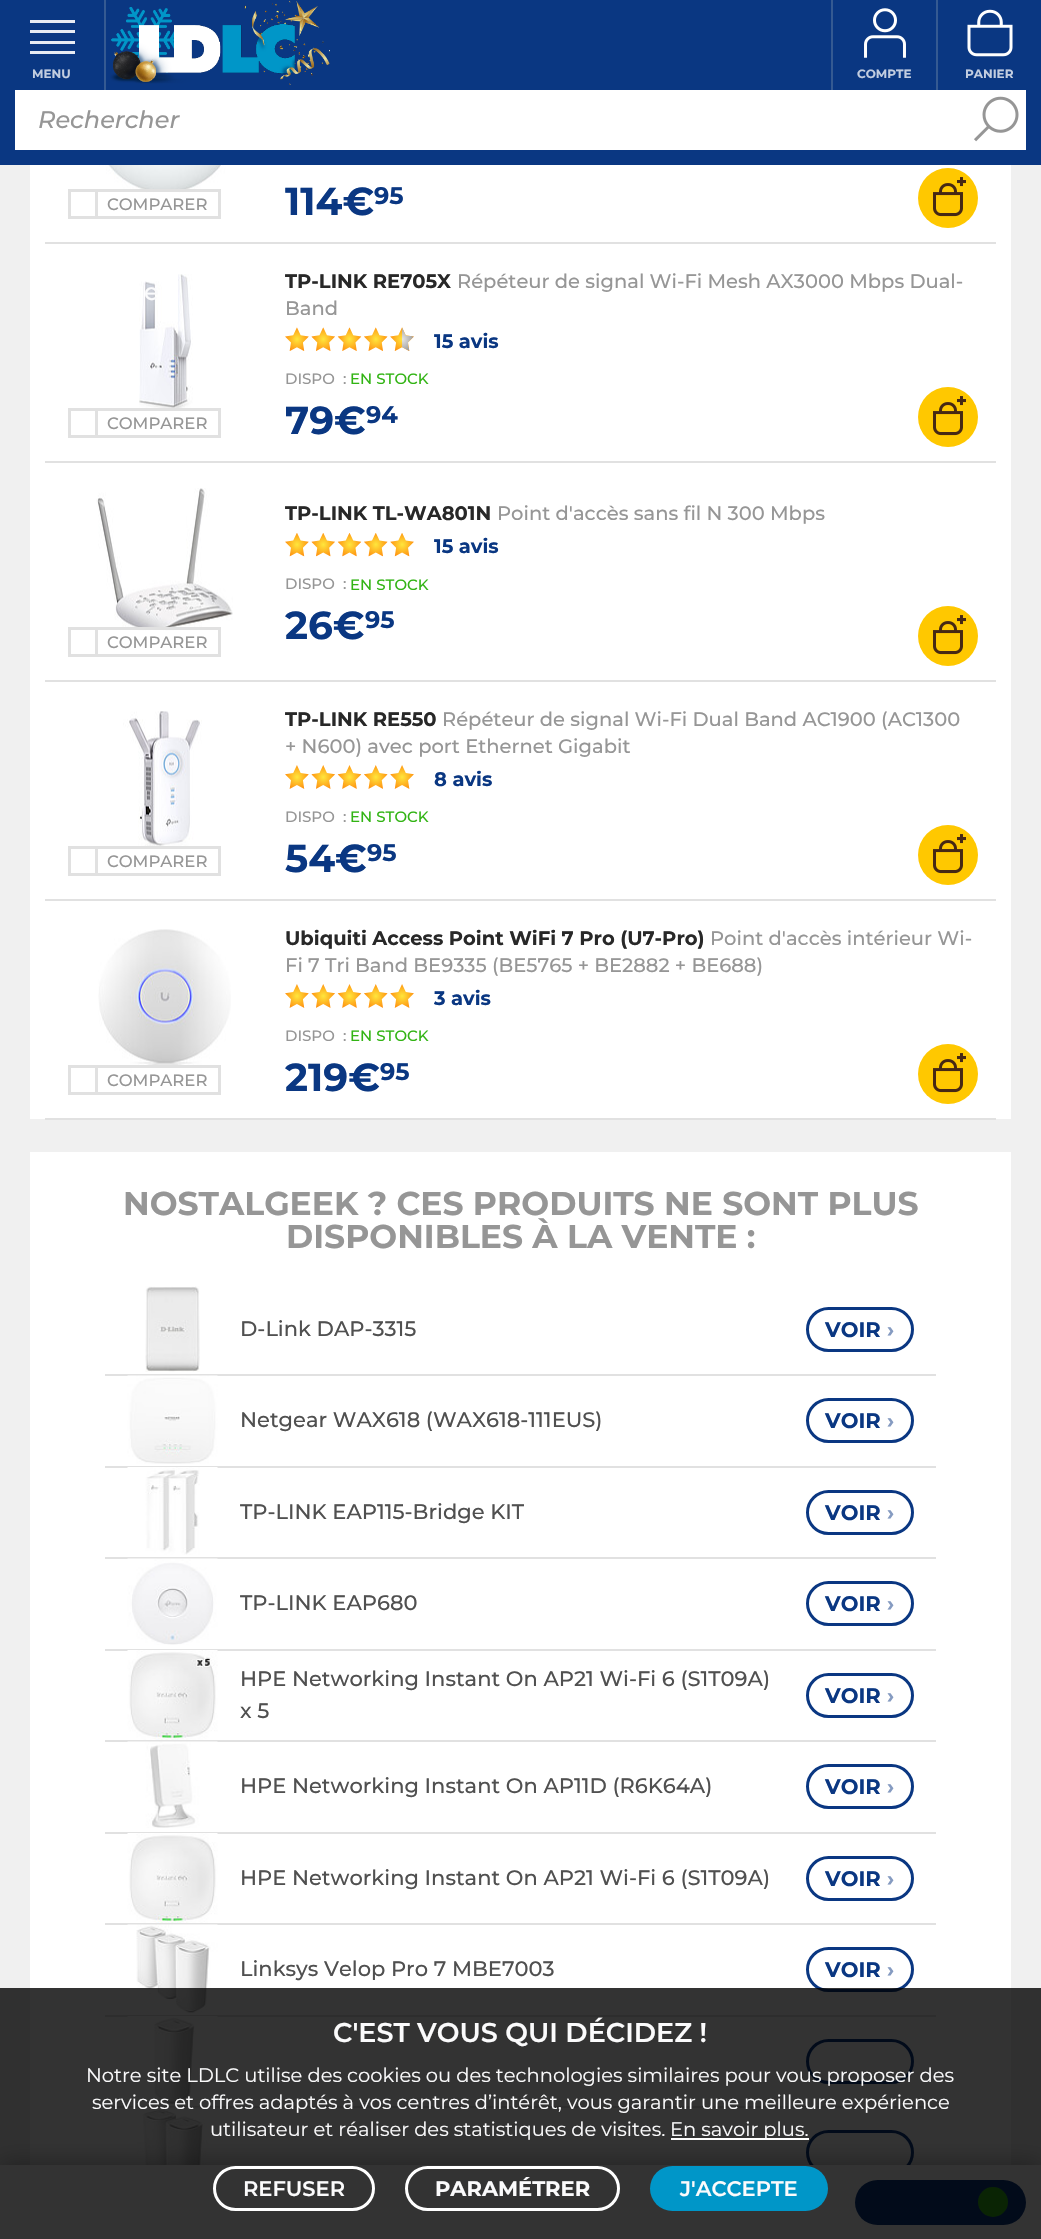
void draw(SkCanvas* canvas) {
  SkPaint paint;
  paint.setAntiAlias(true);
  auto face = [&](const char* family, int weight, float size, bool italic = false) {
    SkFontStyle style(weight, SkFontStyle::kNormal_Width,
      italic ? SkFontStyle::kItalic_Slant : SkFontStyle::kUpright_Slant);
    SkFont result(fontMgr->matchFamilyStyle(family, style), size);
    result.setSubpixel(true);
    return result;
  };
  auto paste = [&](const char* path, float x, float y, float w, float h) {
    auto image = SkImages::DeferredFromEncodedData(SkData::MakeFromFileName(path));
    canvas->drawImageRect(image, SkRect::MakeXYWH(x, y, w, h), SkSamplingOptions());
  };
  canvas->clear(0xfff0f0f0);
  {
    const struct { float x, y, w, h; SkColor color; } items[] = {
      {0, 0, 1041, 90, 0xff0a3782},
      {104, 0, 2, 90, 0xff355a92},
      {30, 20, 45, 3, 0xffe7ebf3},
      {30, 51, 45, 3, 0xffe7ebf3},
      {30, 30, 45, 3, 0xffe7ebf3},
      {30, 41, 45, 3, 0xffe7ebf3},
    };
    for (auto [x, y, w, h, color] : items) {
      paint.setColor(color);
      canvas->drawRect(SkRect::MakeXYWH(x, y, w, h), paint);
    }
  }
  paste("img/1.png", 110, 0, 220, 85);
  paint.setColor(0xff355a92);
  canvas->drawRect(SkRect::MakeXYWH(831, 0, 2, 90), paint);
  paste("img/2.png", 864, 8, 42, 50);
  canvas->drawRect(SkRect::MakeXYWH(936, 0, 2, 90), paint);
  paste("img/3.png", 967, 9, 46, 48);
  {
    const struct { float x, y, w, h; SkColor color; } items[] = {
      {1026, 90, 15, 60, 0xff0a3782},
      {15, 150, 1026, 15, 0xff0a3782},
      {0, 90, 15, 75, 0xff0a3782},
      {15, 90, 1011, 60, 0xffffffff},
    };
    for (auto [x, y, w, h, color] : items) {
      paint.setColor(color);
      canvas->drawRect(SkRect::MakeXYWH(x, y, w, h), paint);
    }
  }
  paste("img/4.png", 974, 96, 45, 46);
  canvas->drawRect(SkRect::MakeXYWH(30, 165, 981, 954), paint);
  paint.setColor(0xffe1e1e1);
  canvas->drawRect(SkRect::MakeXYWH(45, 242, 951, 2), paint);
  paste("img/5.png", 94, 165, 142, 28);
  paint.setColor(0xffffffff);
  canvas->drawRect(SkRect::MakeXYWH(154, 192, 25, 1), paint);
  paint.setStroke(true);
  paint.setStrokeWidth(3);
  paint.setColor(0xffe1e1e1);
  canvas->drawRect(SkRect::MakeXYWH(69.5f, 190.5f, 150, 27), paint);
  canvas->drawRect(SkRect::MakeXYWH(69.5f, 190.5f, 27, 27), paint);
  paint.setStroke(false);
  paint.setColor(0xffffc800);
  canvas->drawCircle(948, 198, 30, paint);
  paste("img/6.png", 933, 177, 33, 40);
  paint.setColor(0xffe1e1e1);
  canvas->drawRect(SkRect::MakeXYWH(45, 461, 951, 2), paint);
  paste("img/7.png", 139, 274, 54, 134);
  paste("img/8.png", 285, 327, 129, 24);
  paint.setColor(0xffffc800);
  canvas->drawCircle(948, 417, 30, paint);
  paste("img/6.png", 933, 396, 33, 40);
  paint.setStroke(true);
  paint.setColor(0xffe1e1e1);
  canvas->drawRect(SkRect::MakeXYWH(69.5f, 409.5f, 150, 27), paint);
  canvas->drawRect(SkRect::MakeXYWH(69.5f, 409.5f, 27, 27), paint);
  paint.setStroke(false);
  canvas->drawRect(SkRect::MakeXYWH(45, 680, 951, 2), paint);
  paste("img/9.png", 96, 488, 137, 143);
  paste("img/10.png", 285, 533, 129, 24);
  paint.setColor(0xffffc800);
  canvas->drawCircle(948, 636, 30, paint);
  paste("img/6.png", 933, 615, 33, 40);
  paint.setColor(0xffffffff);
  canvas->drawRect(SkRect::MakeXYWH(149, 630, 14, 1), paint);
  paint.setStroke(true);
  paint.setColor(0xffe1e1e1);
  canvas->drawRect(SkRect::MakeXYWH(69.5f, 628.5f, 150, 27), paint);
  canvas->drawRect(SkRect::MakeXYWH(69.5f, 628.5f, 27, 27), paint);
  paint.setStroke(false);
  canvas->drawRect(SkRect::MakeXYWH(45, 899, 951, 2), paint);
  paste("img/11.png", 123, 711, 79, 135);
  paste("img/12.png", 285, 765, 129, 24);
  paint.setColor(0xffffc800);
  canvas->drawCircle(948, 855, 30, paint);
  paste("img/6.png", 933, 834, 33, 40);
  paint.setStroke(true);
  paint.setColor(0xffe1e1e1);
  canvas->drawRect(SkRect::MakeXYWH(69.5f, 847.5f, 150, 27), paint);
  canvas->drawRect(SkRect::MakeXYWH(69.5f, 847.5f, 27, 27), paint);
  paint.setStroke(false);
  canvas->drawRect(SkRect::MakeXYWH(45, 1118, 951, 2), paint);
  paste("img/13.png", 98, 929, 133, 144);
  paste("img/14.png", 285, 984, 129, 24);
  paint.setColor(0xffffc800);
  canvas->drawCircle(948, 1074, 30, paint);
  paste("img/6.png", 933, 1053, 33, 40);
  paint.setColor(0xffffffff);
  canvas->drawRect(SkRect::MakeXYWH(132, 1068, 66, 5), paint);
  paint.setStroke(true);
  paint.setColor(0xffe1e1e1);
  canvas->drawRect(SkRect::MakeXYWH(69.5f, 1066.5f, 150, 27), paint);
  canvas->drawRect(SkRect::MakeXYWH(69.5f, 1066.5f, 27, 27), paint);
  paint.setStroke(false);
  paint.setColor(0xffffffff);
  canvas->drawRect(SkRect::MakeXYWH(30, 1152, 981, 1013), paint);
  paint.setColor(0xffe1e1e1);
  canvas->drawRect(SkRect::MakeXYWH(105, 2106, 831, 2), paint);
  paste("img/24.png", 127, 2107, 91, 58);
  paint.setStroke(true);
  paint.setColor(0xff0a3782);
  canvas->drawRoundRect(SkRect::MakeXYWH(807.5f, 2131.5f, 105, 42), 21, 21, paint);
  paint.setStroke(false);
  paint.setColor(0x4d000000);
  paint.setMaskFilter(SkMaskFilter::MakeBlur(kNormal_SkBlurStyle, 11));
  canvas->drawRect(SkRect::MakeXYWH(0, 2162, 1041, 75), paint);
  paint.setMaskFilter(nullptr);
  paint.setColor(0xffffffff);
  canvas->drawRect(SkRect::MakeXYWH(0, 2165, 1041, 74), paint);
  paint.setColor(0xff0a3782);
  canvas->drawRoundRect(SkRect::MakeXYWH(855, 2180, 171, 45), 22.5f, 22.5f, paint);
  paint.setColor(0xff32b414);
  canvas->drawCircle(993, 2202, 15, paint);
  paint.setColor(0xffe1e1e1);
  canvas->drawRect(SkRect::MakeXYWH(105, 1374, 831, 2), paint);
  paste("img/15.png", 145, 1286, 55, 86);
  paint.setStroke(true);
  paint.setColor(0xff0a3782);
  canvas->drawRoundRect(SkRect::MakeXYWH(807.5f, 1308.5f, 105, 42), 21, 21, paint);
  paint.setStroke(false);
  paint.setColor(0xffe1e1e1);
  canvas->drawRect(SkRect::MakeXYWH(105, 1466, 831, 2), paint);
  paste("img/16.png", 127, 1375, 91, 89);
  paint.setStroke(true);
  paint.setColor(0xff0a3782);
  canvas->drawRoundRect(SkRect::MakeXYWH(807.5f, 1399.5f, 105, 42), 21, 21, paint);
  paint.setStroke(false);
  paint.setColor(0xffe1e1e1);
  canvas->drawRect(SkRect::MakeXYWH(105, 1557, 831, 2), paint);
  paste("img/17.png", 127, 1467, 91, 88);
  paint.setStroke(true);
  paint.setColor(0xff0a3782);
  canvas->drawRoundRect(SkRect::MakeXYWH(807.5f, 1491.5f, 105, 42), 21, 21, paint);
  paint.setStroke(false);
  paint.setColor(0xffe1e1e1);
  canvas->drawRect(SkRect::MakeXYWH(105, 1649, 831, 2), paint);
  paste("img/18.png", 127, 1558, 91, 87);
  paint.setStroke(true);
  paint.setColor(0xff0a3782);
  canvas->drawRoundRect(SkRect::MakeXYWH(807.5f, 1582.5f, 105, 42), 21, 21, paint);
  paint.setStroke(false);
  paint.setColor(0xffe1e1e1);
  canvas->drawRect(SkRect::MakeXYWH(105, 1740, 831, 2), paint);
  paste("img/19.png", 127, 1650, 91, 90);
  paint.setStroke(true);
  paint.setColor(0xff0a3782);
  canvas->drawRoundRect(SkRect::MakeXYWH(807.5f, 1674.5f, 105, 42), 21, 21, paint);
  paint.setStroke(false);
  paint.setColor(0xffe1e1e1);
  canvas->drawRect(SkRect::MakeXYWH(105, 1832, 831, 2), paint);
  paste("img/20.png", 127, 1741, 91, 87);
  paint.setStroke(true);
  paint.setColor(0xff0a3782);
  canvas->drawRoundRect(SkRect::MakeXYWH(807.5f, 1765.5f, 105, 42), 21, 21, paint);
  paint.setStroke(false);
  paint.setColor(0xffe1e1e1);
  canvas->drawRect(SkRect::MakeXYWH(105, 1923, 831, 2), paint);
  paste("img/21.png", 127, 1833, 91, 90);
  paint.setStroke(true);
  paint.setColor(0xff0a3782);
  canvas->drawRoundRect(SkRect::MakeXYWH(807.5f, 1857.5f, 105, 42), 21, 21, paint);
  paint.setStroke(false);
  paint.setColor(0xffe1e1e1);
  canvas->drawRect(SkRect::MakeXYWH(105, 2015, 831, 2), paint);
  paste("img/22.png", 127, 1924, 91, 89);
  paint.setStroke(true);
  paint.setColor(0xff0a3782);
  canvas->drawRoundRect(SkRect::MakeXYWH(807.5f, 1948.5f, 105, 42), 21, 21, paint);
  paste("img/23.png", 127, 2016, 91, 88);
  canvas->drawRoundRect(SkRect::MakeXYWH(807.5f, 2040.5f, 105, 42), 21, 21, paint);
  paint.setStroke(false);
  paint.setColor(0xcc000000);
  canvas->drawRect(SkRect::MakeXYWH(0, 1988, 1041, 251), paint);
  paint.setColor(0xffffffff);
  canvas->drawRect(SkRect::MakeXYWH(671, 2138, 138, 2), paint);
  paint.setStroke(true);
  canvas->drawRoundRect(SkRect::MakeXYWH(214.5f, 2167.5f, 159, 42), 21, 21, paint);
  canvas->drawRoundRect(SkRect::MakeXYWH(406.5f, 2167.5f, 212, 42), 21, 21, paint);
  paint.setStroke(false);
  paint.setColor(0xff0096c8);
  canvas->drawRoundRect(SkRect::MakeXYWH(650, 2166, 178, 45), 22.5f, 22.5f, paint);
  auto f0 = face("Montserrat", 700, 12);
  paint.setColor(0xffc2cde0);
  {
    const struct { const char* s; float x, y; } items[] = {
      {"MENU", 32, 78},
      {"COMPTE", 857, 78},
      {"PANIER", 965, 78},
    };
    for (auto [s, x, y] : items) {
      canvas->drawString(s, x, y, f0, paint);
    }
  }
  auto f1 = face("Montserrat", 500, 24, true);
  paint.setColor(0xff969696);
  canvas->drawString("Rechercher", 38, 128, f1, paint);
  auto f2 = face("Montserrat", 500, 24);
  paint.setColor(0xfffbfbfc);
  canvas->drawString("e", 144, 300, f2, paint);
  auto f3 = face("Montserrat", 500, 16.5f);
  paint.setColor(0xff969696);
  canvas->drawString("COMPARER", 107, 210, f3, paint);
  auto f4 = face("Montserrat", 700, 39);
  paint.setColor(0xff0a3782);
  canvas->drawString("114€", 285, 215, f4, paint);
  auto f5 = face("Montserrat", 700, 24);
  canvas->drawString("95", 374, 204, f5, paint);
  auto f6 = face("Montserrat", 700, 19.5f);
  paint.setColor(0xff282828);
  canvas->drawString("TP-LINK RE705X", 285, 288, f6, paint);
  auto f7 = face("Montserrat", 500, 19.5f);
  paint.setColor(0xff969696);
  canvas->drawString("Répéteur de signal Wi-Fi Mesh AX3000 Mbps Dual-", 457, 288, f7, paint);
  canvas->drawString("Band", 285, 315, f7, paint);
  paint.setColor(0xff0a3782);
  canvas->drawString("15 avis", 434, 348, f6, paint);
  auto f8 = face("Montserrat", 500, 15);
  paint.setColor(0xff969696);
  canvas->drawString("DISPO", 285, 384, f8, paint);
  canvas->drawString(":", 343, 384, f8, paint);
  paint.setColor(0xff32b414);
  canvas->drawString("EN STOCK", 350, 384, f8, paint);
  paint.setColor(0xff0a3782);
  canvas->drawString("79€", 285, 434, f4, paint);
  canvas->drawString("94", 366, 423, f5, paint);
  paint.setColor(0xff969696);
  canvas->drawString("COMPARER", 107, 429, f3, paint);
  paint.setColor(0xff282828);
  canvas->drawString("TP-LINK TL-WA801N", 285, 520, f6, paint);
  paint.setColor(0xff969696);
  canvas->drawString("Point d'accès sans fil N 300 Mbps", 497, 520, f7, paint);
  paint.setColor(0xff0a3782);
  canvas->drawString("15 avis", 434, 553, f6, paint);
  paint.setColor(0xff969696);
  canvas->drawString("DISPO", 285, 589, f8, paint);
  canvas->drawString(":", 343, 589, f8, paint);
  paint.setColor(0xff32b414);
  canvas->drawString("EN STOCK", 350, 590, f8, paint);
  paint.setColor(0xff0a3782);
  canvas->drawString("26€", 285, 639, f4, paint);
  canvas->drawString("95", 365, 628, f5, paint);
  paint.setColor(0xff969696);
  canvas->drawString("COMPARER", 107, 648, f3, paint);
  paint.setColor(0xff282828);
  canvas->drawString("TP-LINK RE550", 285, 726, f6, paint);
  paint.setColor(0xff969696);
  canvas->drawString("Répéteur de signal Wi-Fi Dual Band AC1900 (AC1300", 442, 726, f7, paint);
  canvas->drawString("+ N600) avec port Ethernet Gigabit", 285, 753, f7, paint);
  paint.setColor(0xff0a3782);
  canvas->drawString("8 avis", 434, 786, f6, paint);
  paint.setColor(0xff969696);
  canvas->drawString("DISPO", 285, 822, f8, paint);
  canvas->drawString(":", 343, 822, f8, paint);
  paint.setColor(0xff32b414);
  canvas->drawString("EN STOCK", 350, 822, f8, paint);
  paint.setColor(0xff0a3782);
  canvas->drawString("54€", 285, 872, f4, paint);
  canvas->drawString("95", 367, 861, f5, paint);
  paint.setColor(0xff969696);
  canvas->drawString("COMPARER", 107, 867, f3, paint);
  paint.setColor(0xff282828);
  canvas->drawString("Ubiquiti Access Point WiFi 7 Pro (U7-Pro)", 285, 945, f6, paint);
  paint.setColor(0xff969696);
  canvas->drawString("Point d'accès intérieur Wi-", 710, 945, f7, paint);
  canvas->drawString("Fi 7 Tri Band BE9335 (BE5765 + BE2882 + BE688)", 285, 972, f7, paint);
  paint.setColor(0xff0a3782);
  canvas->drawString("3 avis", 434, 1005, f6, paint);
  paint.setColor(0xff969696);
  canvas->drawString("DISPO", 285, 1041, f8, paint);
  canvas->drawString(":", 343, 1041, f8, paint);
  paint.setColor(0xff32b414);
  canvas->drawString("EN STOCK", 350, 1041, f8, paint);
  paint.setColor(0xff0a3782);
  canvas->drawString("219€", 285, 1091, f4, paint);
  canvas->drawString("95", 380, 1080, f5, paint);
  paint.setColor(0xff969696);
  canvas->drawString("COMPARER", 107, 1086, f3, paint);
  auto f9 = face("Montserrat", 700, 33);
  canvas->drawString("NOSTALGEEK ? CES PRODUITS NE SONT PLUS", 123, 1215, f9, paint);
  canvas->drawString("DISPONIBLES À LA VENTE :", 286, 1248, f9, paint);
  auto f10 = face("Montserrat", 500, 21);
  paint.setColor(0xff505050);
  canvas->drawString("D-Link DAP-3315", 240, 1336, f10, paint);
  auto f11 = face("Montserrat", 700, 21);
  paint.setColor(0xff0a3782);
  canvas->drawString("VOIR", 825, 1337, f11, paint);
  paint.setColor(0xff859bc1);
  canvas->drawString("›", 887, 1337, f11, paint);
  paint.setColor(0xff505050);
  canvas->drawString("Netgear WAX618 (WAX618-111EUS)", 240, 1427, f10, paint);
  paint.setColor(0xff0a3782);
  canvas->drawString("VOIR", 825, 1428, f11, paint);
  paint.setColor(0xff859bc1);
  canvas->drawString("›", 887, 1428, f11, paint);
  paint.setColor(0xff505050);
  canvas->drawString("TP-LINK EAP115-Bridge KIT", 240, 1519, f10, paint);
  paint.setColor(0xff0a3782);
  canvas->drawString("VOIR", 825, 1520, f11, paint);
  paint.setColor(0xff859bc1);
  canvas->drawString("›", 887, 1520, f11, paint);
  paint.setColor(0xff505050);
  canvas->drawString("TP-LINK EAP680", 240, 1610, f10, paint);
  paint.setColor(0xff0a3782);
  canvas->drawString("VOIR", 825, 1611, f11, paint);
  paint.setColor(0xff859bc1);
  canvas->drawString("›", 887, 1611, f11, paint);
  paint.setColor(0xff505050);
  canvas->drawString("HPE Networking Instant On AP21 Wi-Fi 6 (S1T09A)", 240, 1686, f10, paint);
  canvas->drawString("x 5", 240, 1718, f10, paint);
  paint.setColor(0xff0a3782);
  canvas->drawString("VOIR", 825, 1703, f11, paint);
  paint.setColor(0xff859bc1);
  canvas->drawString("›", 887, 1703, f11, paint);
  paint.setColor(0xff505050);
  canvas->drawString("HPE Networking Instant On AP11D (R6K64A)", 240, 1793, f10, paint);
  paint.setColor(0xff0a3782);
  canvas->drawString("VOIR", 825, 1794, f11, paint);
  paint.setColor(0xff859bc1);
  canvas->drawString("›", 887, 1794, f11, paint);
  paint.setColor(0xff505050);
  canvas->drawString("HPE Networking Instant On AP21 Wi-Fi 6 (S1T09A)", 240, 1885, f10, paint);
  paint.setColor(0xff0a3782);
  canvas->drawString("VOIR", 825, 1886, f11, paint);
  paint.setColor(0xff859bc1);
  canvas->drawString("›", 887, 1886, f11, paint);
  paint.setColor(0xff505050);
  canvas->drawString("Linksys Velop Pro 7 MBE7003", 240, 1976, f10, paint);
  paint.setColor(0xff0a3782);
  canvas->drawString("VOIR", 825, 1977, f11, paint);
  paint.setColor(0xff859bc1);
  canvas->drawString("›", 887, 1977, f11, paint);
  auto f12 = face("Montserrat", 600, 27);
  paint.setColor(0xfffbfbfc);
  canvas->drawString("C'EST VOUS QUI DÉCIDEZ !", 333, 2042, f12, paint);
  auto f13 = face("Montserrat", 400, 19.5f);
  {
    const struct { const char* s; float x, y; } items[] = {
      {"Notre site LDLC utilise des cookies ou des technologies similaires pour vous proposer des", 86, 2082},
      {"services et offres adaptés à vos centres d’intérêt, vous garantir une meilleure expérience", 92, 2109},
      {"utilisateur et réaliser des statistiques de visites.", 210, 2136},
      {"En savoir plus.", 670, 2136},
    };
    for (auto [s, x, y] : items) {
      canvas->drawString(s, x, y, f13, paint);
    }
  }
  auto f14 = face("Montserrat", 600, 21);
  canvas->drawString("REFUSER", 243, 2196, f14, paint);
  canvas->drawString("PARAMÉTRER", 435, 2196, f11, paint);
  canvas->drawString("J'ACCEPTE", 680, 2196, f14, paint);
}
